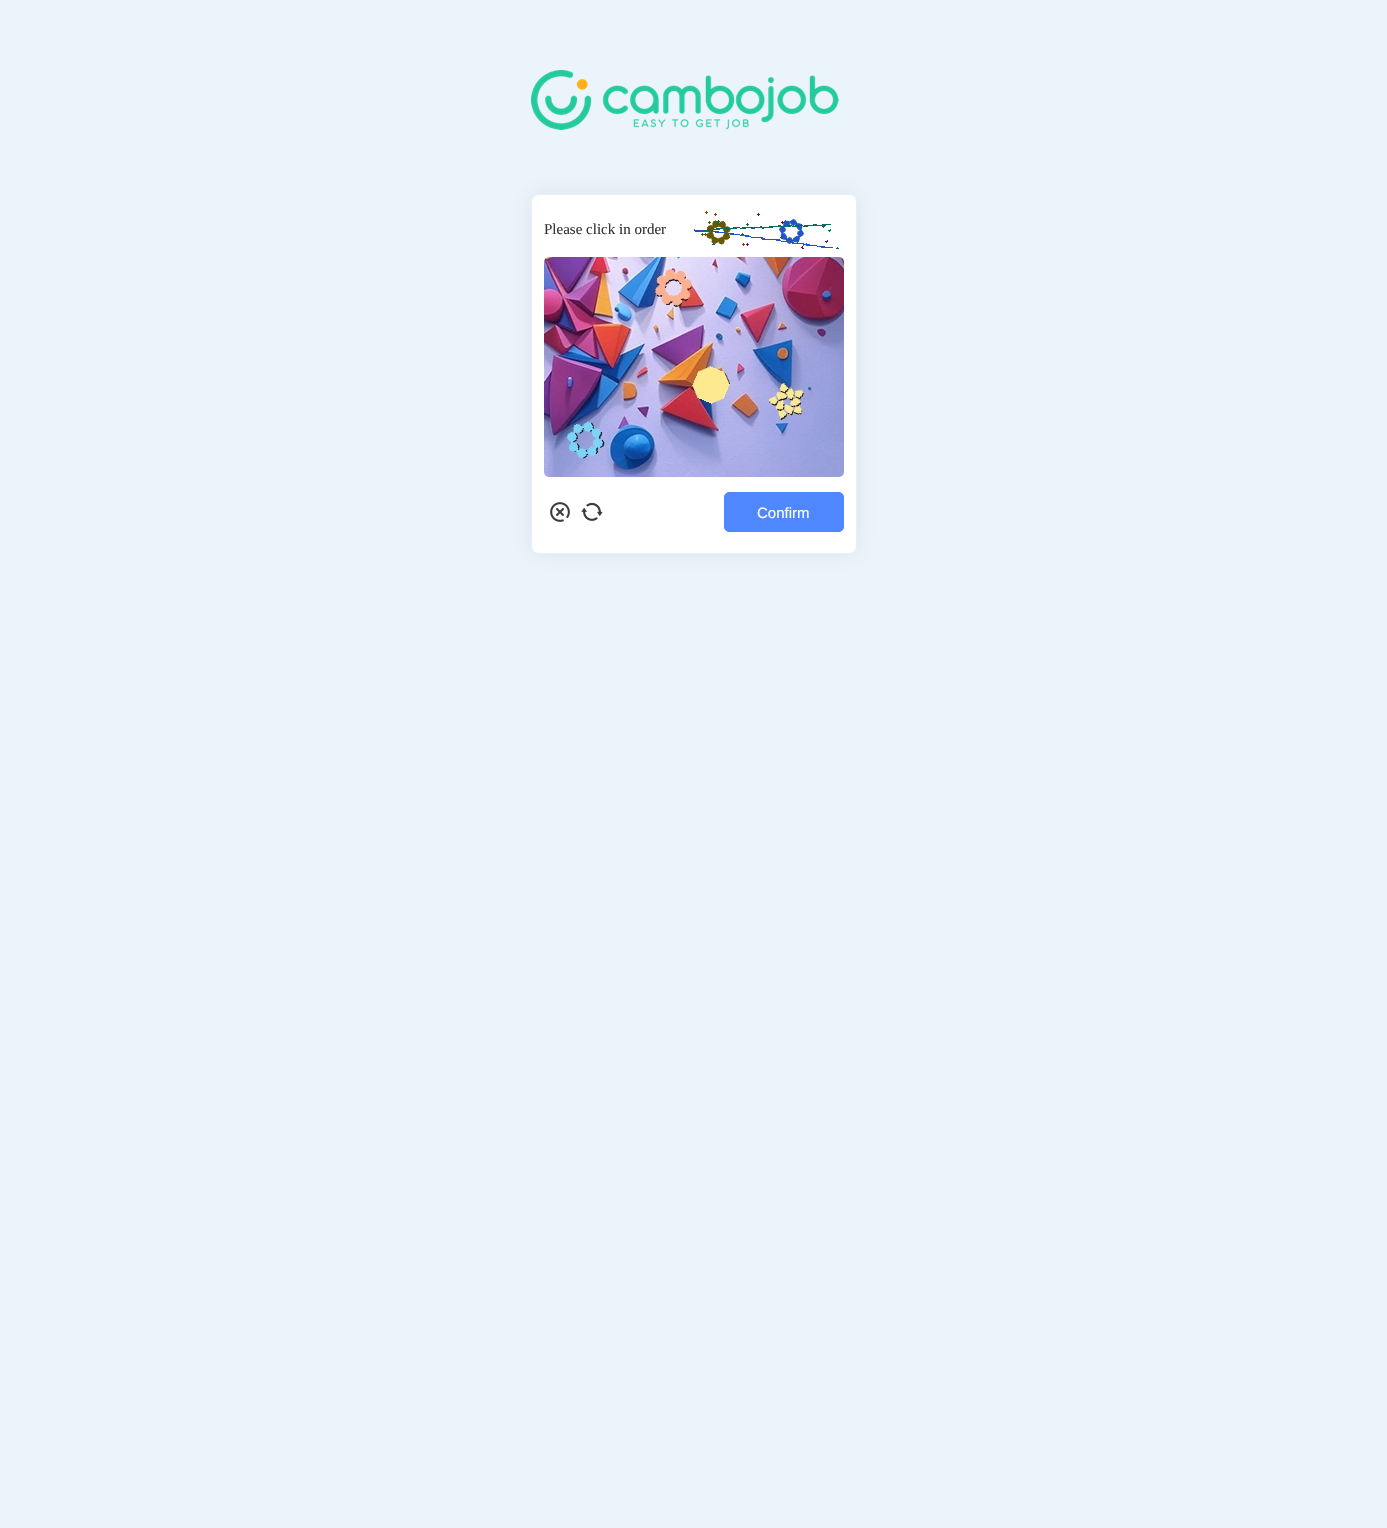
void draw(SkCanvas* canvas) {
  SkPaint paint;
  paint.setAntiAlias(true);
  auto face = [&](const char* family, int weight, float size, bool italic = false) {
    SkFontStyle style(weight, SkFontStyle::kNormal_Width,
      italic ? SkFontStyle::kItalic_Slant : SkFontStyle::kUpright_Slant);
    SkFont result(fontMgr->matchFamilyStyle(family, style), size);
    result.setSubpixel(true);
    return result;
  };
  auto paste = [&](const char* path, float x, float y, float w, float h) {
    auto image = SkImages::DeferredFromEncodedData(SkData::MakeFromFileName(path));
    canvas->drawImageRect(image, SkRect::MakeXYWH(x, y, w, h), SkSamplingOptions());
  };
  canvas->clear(0xffebf3fb);
  paste("img/1.png", 531, 70, 308, 60);
  paint.setColor(0x1a646464);
  paint.setMaskFilter(SkMaskFilter::MakeBlur(kNormal_SkBlurStyle, 10));
  canvas->drawRoundRect(SkRect::MakeXYWH(531, 194, 326, 360), 8, 8, paint);
  paint.setMaskFilter(nullptr);
  paint.setColor(0xffffffff);
  canvas->drawRoundRect(SkRect::MakeXYWH(531, 194, 326, 360), 8, 8, paint);
  paint.setStroke(true);
  paint.setStrokeWidth(1);
  paint.setColor(0x80cedffe);
  canvas->drawRoundRect(SkRect::MakeXYWH(531.5f, 194.5f, 325, 359), 7.5f, 7.5f, paint);
  paste("img/2.png", 694, 211, 145, 38);
  paste("img/3.png", 544, 257, 300, 220);
  paste("img/4.png", 550, 502, 20, 20);
  paste("img/5.png", 581, 502, 22, 19);
  paint.setStroke(false);
  paint.setColor(0xff4e87ff);
  canvas->drawRoundRect(SkRect::MakeXYWH(724.5f, 492.5f, 119, 39), 4.5f, 4.5f, paint);
  paint.setStroke(true);
  canvas->drawRoundRect(SkRect::MakeXYWH(724.5f, 492.5f, 119, 39), 4.5f, 4.5f, paint);
  auto f0 = face("Liberation Serif", 400, 15);
  paint.setStroke(false);
  paint.setColor(0xff333333);
  canvas->drawString("Please click in order", 544, 234, f0, paint);
  auto f1 = face("Liberation Sans", 400, 15);
  paint.setColor(0xffffffff);
  canvas->drawString("Confirm", 757, 518, f1, paint);
}
